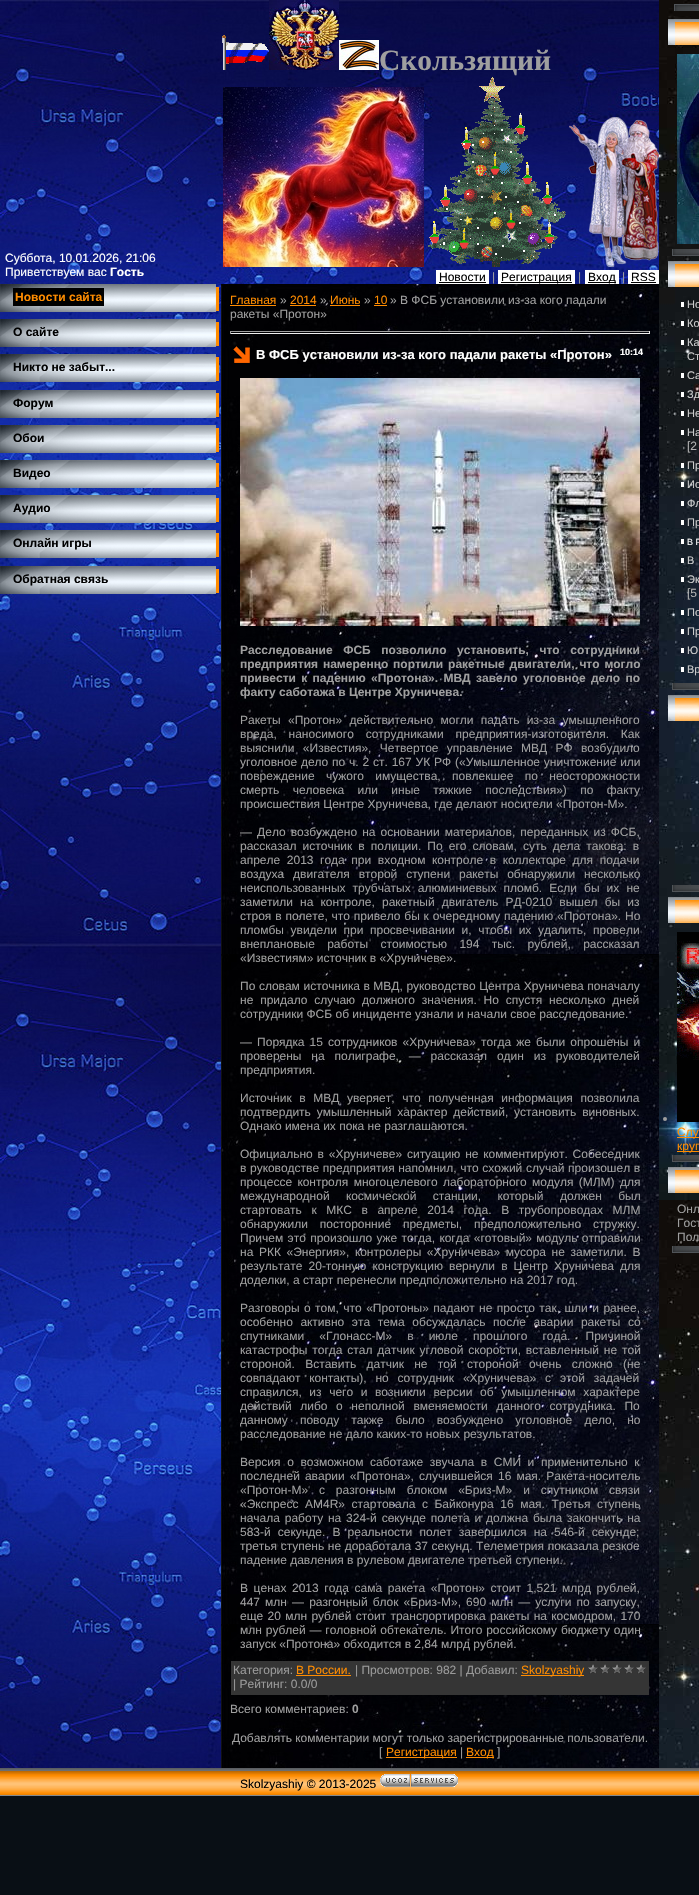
void draw(SkCanvas* canvas) {
  SkPaint paint;
  paint.setAntiAlias(true);
  auto face = [&](const char* family, int weight, float size, bool italic = false) {
    SkFontStyle style(weight, SkFontStyle::kNormal_Width,
      italic ? SkFontStyle::kItalic_Slant : SkFontStyle::kUpright_Slant);
    SkFont result(fontMgr->matchFamilyStyle(family, style), size);
    result.setSubpixel(true);
    return result;
  };
  auto writeSpaced = [&](const char* s, float x, float y, const SkFont& font, const SkPaint& ink, float letter, float word) {
    std::vector<SkGlyphID> glyphs(font.countText(s, strlen(s), SkTextEncoding::kUTF8));
    std::vector<float> xs(glyphs.size());
    font.textToGlyphs(s, strlen(s), SkTextEncoding::kUTF8, glyphs);
    font.getXPos(glyphs, xs, x);
    float extra = 0;
    for (size_t i = 0; i < glyphs.size(); i++) {
      xs[i] += extra;
      extra += letter + word * (glyphs[i] == font.unicharToGlyph(' '));
    }
    canvas->drawTextBlob(SkTextBlob::MakeFromPosHGlyphs(glyphs, xs, y, font), 0, 0, ink);
  };
  auto paste = [&](const char* path, float x, float y, float w, float h) {
    auto image = SkImages::DeferredFromEncodedData(SkData::MakeFromFileName(path));
    canvas->drawImageRect(image, SkRect::MakeXYWH(x, y, w, h), SkSamplingOptions());
  };
  canvas->clear(0xff090f15);
  paste("img/1.png", 0, 0, 659, 1768);
  paste("img/2.png", 222, 35, 47, 35);
  paste("img/3.png", 269, 0, 70, 70);
  paste("img/4.png", 339, 40, 40, 30);
  paste("img/5.png", 223, 87, 201, 180);
  paste("img/6.png", 428, 77, 138, 190);
  paste("img/7.png", 569, 117, 90, 150);
  {
    const struct { float x, y, w, h; SkColor color; } items[] = {
      {436, 270, 53, 14, 0xffffffff},
      {439, 282, 47, 1, 0xff000000},
      {498, 270, 77, 14, 0xffffffff},
      {501, 282, 71, 1, 0xff000000},
      {585, 270, 34, 14, 0xffffffff},
      {588, 282, 28, 1, 0xff000000},
      {628, 270, 31, 14, 0xffffffff},
      {631, 282, 25, 1, 0xff000000},
    };
    for (auto [x, y, w, h, color] : items) {
      paint.setColor(color);
      canvas->drawRect(SkRect::MakeXYWH(x, y, w, h), paint);
    }
  }
  paste("img/8.png", 0, 284, 219, 28);
  canvas->drawRect(SkRect::MakeXYWH(13, 288, 91, 18), paint);
  paste("img/9.png", 0, 319, 219, 28);
  paste("img/10.png", 0, 354, 219, 28);
  paste("img/11.png", 0, 390, 219, 28);
  paste("img/12.png", 0, 425, 219, 28);
  paste("img/13.png", 0, 460, 219, 28);
  paste("img/14.png", 0, 495, 219, 28);
  paste("img/15.png", 0, 530, 219, 28);
  paste("img/16.png", 0, 566, 219, 28);
  paste("img/17.png", 221, 284, 438, 1484);
  {
    const struct { float x, y, w, h; SkColor color; } items[] = {
      {230, 305, 46, 1, 0xffff8c00},
      {290, 305, 26, 1, 0xffff8c00},
      {330, 305, 30, 1, 0xffff8c00},
      {374, 305, 13, 1, 0xffff8c00},
      {230, 331, 420, 1, 0xff9f9f9f},
      {649, 331, 1, 3, 0xffeeeeee},
      {230, 333, 420, 1, 0xffeeeeee},
      {230, 331, 1, 3, 0xff9f9f9f},
    };
    for (auto [x, y, w, h, color] : items) {
      paint.setColor(color);
      canvas->drawRect(SkRect::MakeXYWH(x, y, w, h), paint);
    }
  }
  paste("img/18.png", 233, 346, 17, 17);
  paste("img/19.png", 240, 378, 400, 248);
  {
    const struct { float x, y, w, h; SkColor color; } items[] = {
      {231, 1661, 418, 34, 0xff353535},
      {296, 1675, 55, 1, 0xffff8c00},
      {521, 1675, 63, 1, 0xffff8c00},
    };
    for (auto [x, y, w, h, color] : items) {
      paint.setColor(color);
      canvas->drawRect(SkRect::MakeXYWH(x, y, w, h), paint);
    }
  }
  paste("img/20.png", 588, 1664, 58, 10);
  canvas->drawRect(SkRect::MakeXYWH(386, 1757, 71, 1), paint);
  canvas->drawRect(SkRect::MakeXYWH(466, 1757, 28, 1), paint);
  paste("img/21.png", 659, 0, 40, 1768);
  paste("img/22.png", 674, 4, 25, 7);
  paste("img/23.png", 668, 19, 31, 26);
  paste("img/24.png", 672, 249, 27, 7);
  paste("img/25.png", 677, 54, 22, 190);
  paste("img/23.png", 668, 261, 31, 26);
  paste("img/24.png", 672, 683, 27, 7);
  {
    const struct { float x, y, w, h; SkColor color; } items[] = {
      {681, 302, 3, 5, 0xffffffff},
      {681, 321, 3, 5, 0xffffffff},
      {681, 340, 3, 5, 0xffffffff},
      {681, 373, 3, 5, 0xffffffff},
      {681, 392, 3, 5, 0xffffffff},
      {681, 411, 3, 5, 0xffffffff},
      {681, 430, 3, 5, 0xffffffff},
      {681, 463, 3, 5, 0xffffffff},
      {681, 482, 3, 5, 0xffffffff},
      {681, 501, 3, 5, 0xffffffff},
      {681, 520, 3, 5, 0xffffffff},
      {681, 539, 3, 5, 0xffffffff},
      {681, 558, 3, 5, 0xffffffff},
      {681, 577, 3, 5, 0xffffffff},
      {681, 610, 3, 5, 0xffffffff},
      {681, 629, 3, 5, 0xffffffff},
      {681, 648, 3, 5, 0xffffffff},
      {681, 667, 3, 5, 0xffffffff},
    };
    for (auto [x, y, w, h, color] : items) {
      paint.setColor(color);
      canvas->drawRect(SkRect::MakeXYWH(x, y, w, h), paint);
    }
  }
  paste("img/23.png", 668, 695, 31, 26);
  paste("img/24.png", 672, 885, 27, 7);
  paste("img/23.png", 668, 897, 31, 26);
  paste("img/24.png", 672, 1155, 27, 7);
  paint.setColor(0xff9f9f9f);
  canvas->drawCircle(665, 1119, 2, paint);
  paste("img/26.png", 677, 932, 22, 190);
  paint.setColor(0xffff8c00);
  canvas->drawRect(SkRect::MakeXYWH(677, 1137, 22, 1), paint);
  canvas->drawRect(SkRect::MakeXYWH(677, 1151, 22, 1), paint);
  paste("img/23.png", 668, 1167, 31, 26);
  paste("img/24.png", 672, 1246, 27, 7);
  paste("img/27.png", 0, 1768, 699, 28);
  paste("img/28.png", 380, 1774, 78, 13);
  auto f0 = face("Liberation Sans", 400, 12);
  paint.setColor(0xffffffff);
  canvas->drawString("Суббота, 10.01.2026, 21:06", 5, 262, f0, paint);
  canvas->drawString("Приветствуем вас", 5, 276, f0, paint);
  auto f1 = face("Liberation Sans", 700, 12);
  canvas->drawString("Гость", 110, 276, f1, paint);
  auto f2 = face("Liberation Serif", 700, 29.5f);
  paint.setColor(0xff9f9f9f);
  canvas->drawString("Скользящий", 379, 70, f2, paint);
  paint.setColor(0xff000000);
  canvas->drawString("Новости", 439, 281, f0, paint);
  paint.setColor(0xff9f9f9f);
  canvas->drawString("|", 492, 281, f0, paint);
  paint.setColor(0xff000000);
  canvas->drawString("Регистрация", 501, 281, f0, paint);
  paint.setColor(0xff9f9f9f);
  canvas->drawString("|", 578, 281, f0, paint);
  paint.setColor(0xff000000);
  canvas->drawString("Вход", 588, 281, f0, paint);
  paint.setColor(0xff9f9f9f);
  canvas->drawString("|", 622, 281, f0, paint);
  paint.setColor(0xff000000);
  canvas->drawString("RSS", 631, 281, f0, paint);
  paint.setColor(0xffff8c00);
  canvas->drawString("Новости сайта", 15, 301, f1, paint);
  paint.setColor(0xff000000);
  {
    const struct { const char* s; float x, y; } items[] = {
      {"О сайте", 13, 336},
      {"Никто не забыт...", 13, 371},
      {"Форум", 13, 407},
      {"Обои", 13, 442},
      {"Видео", 13, 477},
      {"Аудио", 13, 512},
      {"Онлайн игры", 13, 547},
      {"Обратная связь", 13, 583},
    };
    for (auto [s, x, y] : items) {
      canvas->drawString(s, x, y, f1, paint);
    }
  }
  paint.setColor(0xffff8c00);
  canvas->drawString("Главная", 230, 304, f0, paint);
  paint.setColor(0xff9f9f9f);
  canvas->drawString("»", 280, 304, f0, paint);
  paint.setColor(0xffff8c00);
  canvas->drawString("2014", 290, 304, f0, paint);
  paint.setColor(0xff9f9f9f);
  canvas->drawString("»", 320, 304, f0, paint);
  paint.setColor(0xffff8c00);
  canvas->drawString("Июнь", 330, 304, f0, paint);
  paint.setColor(0xff9f9f9f);
  canvas->drawString("»", 364, 304, f0, paint);
  paint.setColor(0xffff8c00);
  canvas->drawString("10", 374, 304, f0, paint);
  paint.setColor(0xff9f9f9f);
  canvas->drawString("» В ФСБ установили из-за кого падали", 390, 304, f0, paint);
  canvas->drawString("ракеты «Протон»", 230, 318, f0, paint);
  auto f3 = face("Liberation Sans", 700, 13);
  paint.setColor(0xffffffff);
  canvas->drawString("В ФСБ установили из-за кого падали ракеты «Протон»", 256, 359, f3, paint);
  auto f4 = face("Liberation Sans", 700, 9);
  canvas->drawString("10:14", 620, 355, f4, paint);
  paint.setColor(0xff9f9f9f);
  writeSpaced("Расследование ФСБ позволило установить, что сотрудники", 240, 654, f1, paint, 0, 7.25f);
  writeSpaced("предприятия намеренно портили ракетные двигатели, что могло", 240, 668, f1, paint, 0, 1.5f);
  writeSpaced("привести к падению «Протона». МВД завело уголовное дело по", 240, 682, f1, paint, 0, 2);
  canvas->drawString("факту саботажа в Центре Хруничева.", 240, 696, f1, paint);
  writeSpaced("Ракеты «Протон» действительно могли падать из-за умышленного", 240, 724, f0, paint, 0, 4);
  writeSpaced("вреда, наносимого сотрудниками предприятия-изготовителя. Как", 240, 738, f0, paint, 0, 8.5f);
  writeSpaced("выяснили «Известия», Четвертое управление МВД РФ возбудило", 240, 752, f0, paint, 0, 5);
  writeSpaced("уголовное дело по ч. 2 ст. 167 УК РФ («Умышленное уничтожение или", 240, 766, f0, paint, 0, 0.5f);
  writeSpaced("повреждение чужого имущества, повлекшее по неосторожности", 240, 780, f0, paint, 0, 8);
  writeSpaced("смерть человека или иные тяжкие последствия») по факту", 240, 794, f0, paint, 0, 10);
  canvas->drawString("происшествия Центре Хруничева, где делают носители «Протон-М».", 240, 808, f0, paint);
  writeSpaced("— Дело возбуждено на основании материалов, переданных из ФСБ,", 240, 836, f0, paint, 0, 1.75f);
  writeSpaced("рассказал источник в полиции. По его словам, суть дела такова: в", 240, 850, f0, paint, 0, 2.75f);
  writeSpaced("апреле 2013 года при входном контроле в коллекторе для подачи", 240, 864, f0, paint, 0, 3.25f);
  writeSpaced("воздуха двигателя второй ступени ракеты обнаружили несколько", 240, 878, f0, paint, 0, 5.5f);
  writeSpaced("неиспользованных трубчатых алюминиевых пломб. Если бы их не", 240, 892, f0, paint, 0, 3.75f);
  writeSpaced("заметили на контроле, ракетный двигатель РД-0210 вышел бы из", 240, 906, f0, paint, 0, 3.75f);
  writeSpaced("строя в полете, что привело бы к очередному падению «Протона». Но", 240, 920, f0, paint, 0, 0.5f);
  writeSpaced("пломбы увидели при просвечивании и, чтобы их удалить, провели", 240, 934, f0, paint, 0, 3.25f);
  writeSpaced("внеплановые работы стоимостью 194 тыс. рублей, рассказал", 240, 948, f0, paint, 0, 9);
  canvas->drawString("«Известиям» источник в «Хруничеве».", 240, 962, f0, paint);
  writeSpaced("По словам источника в МВД, руководство Центра Хруничева поначалу", 240, 990, f0, paint, 0, 0.25f);
  writeSpaced("не придало случаю должного значения. Но спустя несколько дней", 240, 1004, f0, paint, 0, 3.5f);
  canvas->drawString("сотрудники ФСБ об инциденте узнали и начали свое расследование.", 240, 1018, f0, paint);
  writeSpaced("— Порядка 15 сотрудников «Хруничева» тогда же были опрошены и", 240, 1046, f0, paint, 0, 1.75f);
  writeSpaced("проверены на полиграфе, — рассказал один из руководителей", 240, 1060, f0, paint, 0, 6.5f);
  canvas->drawString("предприятия.", 240, 1074, f0, paint);
  writeSpaced("Источник в МВД уверяет, что полученная информация позволила", 240, 1102, f0, paint, 0, 4.25f);
  writeSpaced("подтвердить умышленный характер действий, установить виновных.", 240, 1116, f0, paint, 0, 2.5f);
  canvas->drawString("Однако имена их пока не разглашаются.", 240, 1130, f0, paint);
  writeSpaced("Официально в «Хруничеве» ситуацию не комментируют. Собеседник", 240, 1158, f0, paint, 0, 1.5f);
  writeSpaced("в руководстве предприятия напомнил, что схожий случай произошел в", 240, 1172, f0, paint, 0, 0.25f);
  writeSpaced("процессе контроля многоцелевого лабораторного модуля (МЛМ) для", 240, 1186, f0, paint, 0, 2);
  writeSpaced("международной космической станции, который должен был", 240, 1200, f0, paint, 0, 13);
  writeSpaced("стартовать к МКС в апреле 2014 года. В трубопроводах МЛМ", 240, 1214, f0, paint, 0, 6.25f);
  writeSpaced("обнаружили посторонние предметы, предположительно стружку.", 240, 1228, f0, paint, 0, 8.5f);
  writeSpaced("Причем это произошло уже тогда, когда «готовый» модуль отправили", 240, 1242, f0, paint, 0, 1);
  writeSpaced("на РКК «Энергия», контролеры «Хруничева» мусора не заметили. В", 240, 1256, f0, paint, 0, 2.25f);
  writeSpaced("результате 20-тонную конструкцию вернули в Центр Хруничева для", 240, 1270, f0, paint, 0, 2.75f);
  canvas->drawString("доделки, а старт перенесли предположительно на 2017 год.", 240, 1284, f0, paint);
  writeSpaced("Разговоры о том, что «Протоны» падают не просто так, шли и ранее,", 240, 1312, f0, paint, 0, 1.1f);
  writeSpaced("особенно активно эта тема обсуждалась после аварии ракеты со", 240, 1326, f0, paint, 0, 4.25f);
  writeSpaced("спутниками «Глонасс-М» в июле прошлого года. Причиной", 240, 1340, f0, paint, 0, 11.75f);
  writeSpaced("катастрофы тогда стал датчик угловой скорости, вставленный не той", 240, 1354, f0, paint, 0, 1.5f);
  writeSpaced("стороной. Вставить датчик не той стороной очень сложно (не", 240, 1368, f0, paint, 0, 7);
  writeSpaced("совпадают контакты), но сотрудник «Хруничева» с этой задачей", 240, 1382, f0, paint, 0, 5.5f);
  writeSpaced("справился, из чего и возникли версии об умышленном характере", 240, 1396, f0, paint, 0, 4.25f);
  writeSpaced("действий либо о неполной вменяемости данного сотрудника. По", 240, 1410, f0, paint, 0, 5.25f);
  writeSpaced("данному поводу также было возбуждено уголовное дело, но", 240, 1424, f0, paint, 0, 8.75f);
  canvas->drawString("расследование не дало каких-то новых результатов.", 240, 1438, f0, paint);
  writeSpaced("Версия о возможном саботаже звучала в СМИ и применительно к", 240, 1466, f0, paint, 0, 3.25f);
  writeSpaced("последней аварии «Протона», случившейся 16 мая. Ракета-носитель", 240, 1480, f0, paint, 0, 1.75f);
  writeSpaced("«Протон-М» с разгонным блоком «Бриз-М» и спутником связи", 240, 1494, f0, paint, 0, 7.5f);
  writeSpaced("«Экспресс АМ4R» стартовала с Байконура 16 мая. Третья ступень", 240, 1508, f0, paint, 0, 3.25f);
  writeSpaced("начала работу на 324-й секунде полета и должна была закончить на", 240, 1522, f0, paint, 0, 1.5f);
  writeSpaced("583-й секунде. В реальности полет завершился на 546-й секунде;", 240, 1536, f0, paint, 0, 3.75f);
  writeSpaced("третья ступень не доработала 37 секунд. Телеметрия показала резкое", 240, 1550, f0, paint, 0, 0.25f);
  canvas->drawString("падение давления в рулевом двигателе третьей ступени.", 240, 1564, f0, paint);
  writeSpaced("В ценах 2013 года сама ракета «Протон» стоит 1,521 млрд рублей,", 240, 1592, f0, paint, 0, 2.25f);
  writeSpaced("447 млн — разгонный блок «Бриз-М», 690 млн — услуги по запуску,", 240, 1606, f0, paint, 0, 1.75f);
  writeSpaced("еще 20 млн рублей стоит транспортировка ракеты на космодром, 170", 240, 1620, f0, paint, 0, 1);
  writeSpaced("млн рублей — головной обтекатель. Итого российскому бюджету один", 240, 1634, f0, paint, 0, 0.5f);
  canvas->drawString("запуск «Протона» обходится в 2,84 млрд рублей.", 240, 1648, f0, paint);
  paint.setColor(0xff999999);
  canvas->drawString("Категория:", 233, 1674, f0, paint);
  paint.setColor(0xffff8c00);
  canvas->drawString("В России.", 296, 1674, f0, paint);
  paint.setColor(0xff999999);
  canvas->drawString("| Просмотров: 982 | Добавил:", 355, 1674, f0, paint);
  paint.setColor(0xffff8c00);
  canvas->drawString("Skolzyashiy", 521, 1674, f0, paint);
  paint.setColor(0xff999999);
  canvas->drawString("| Рейтинг: 0.0/0", 233, 1688, f0, paint);
  paint.setColor(0xff9f9f9f);
  canvas->drawString("Всего комментариев:", 230, 1713, f0, paint);
  canvas->drawString("0", 352, 1713, f1, paint);
  canvas->drawString("Добавлять комментарии могут только зарегистрированные пользователи.", 232, 1742, f0, paint);
  canvas->drawString("[", 379, 1756, f0, paint);
  paint.setColor(0xffff8c00);
  canvas->drawString("Регистрация", 386, 1756, f0, paint);
  paint.setColor(0xff9f9f9f);
  canvas->drawString("|", 460, 1756, f0, paint);
  paint.setColor(0xffff8c00);
  canvas->drawString("Вход", 466, 1756, f0, paint);
  paint.setColor(0xff9f9f9f);
  canvas->drawString("]", 497, 1756, f0, paint);
  auto f5 = face("Liberation Sans", 400, 11);
  paint.setColor(0xffcccccc);
  {
    const struct { const char* s; float x, y; } items[] = {
      {"Но", 687, 308},
      {"Ко", 687, 327},
      {"Ка", 687, 346},
      {"Ст", 687, 360},
      {"Са", 687, 379},
      {"Зд", 687, 398},
      {"Не", 687, 417},
      {"На", 687, 436},
    };
    for (auto [s, x, y] : items) {
      canvas->drawString(s, x, y, f5, paint);
    }
  }
  paint.setColor(0xffb2b2b2);
  canvas->drawString("[2", 687, 450, f0, paint);
  paint.setColor(0xffcccccc);
  {
    const struct { const char* s; float x, y; } items[] = {
      {"Пр", 687, 469},
      {"Ис", 687, 488},
      {"Фл", 687, 507},
      {"Пр", 687, 526},
    };
    for (auto [s, x, y] : items) {
      canvas->drawString(s, x, y, f5, paint);
    }
  }
  auto f6 = face("Liberation Sans", 400, 9);
  paint.setColor(0xffffffff);
  canvas->drawString("В Р", 687, 545, f6, paint);
  paint.setColor(0xffcccccc);
  canvas->drawString("В", 687, 564, f5, paint);
  canvas->drawString("Эк", 687, 583, f5, paint);
  paint.setColor(0xffb2b2b2);
  canvas->drawString("[5", 687, 597, f0, paint);
  paint.setColor(0xffcccccc);
  {
    const struct { const char* s; float x, y; } items[] = {
      {"По", 687, 616},
      {"Пр", 687, 635},
      {"Ю", 687, 654},
      {"Вр", 687, 673},
    };
    for (auto [s, x, y] : items) {
      canvas->drawString(s, x, y, f5, paint);
    }
  }
  paint.setColor(0xffff8c00);
  canvas->drawString("Слу", 677, 1136, f0, paint);
  canvas->drawString("круг", 677, 1150, f0, paint);
  paint.setColor(0xff9f9f9f);
  {
    const struct { const char* s; float x, y; } items[] = {
      {"Онл", 677, 1213},
      {"Гост", 677, 1227},
      {"Пол", 677, 1241},
    };
    for (auto [s, x, y] : items) {
      canvas->drawString(s, x, y, f0, paint);
    }
  }
  paint.setColor(0xff000000);
  canvas->drawString("Skolzyashiy © 2013-2025", 240, 1788, f0, paint);
}
